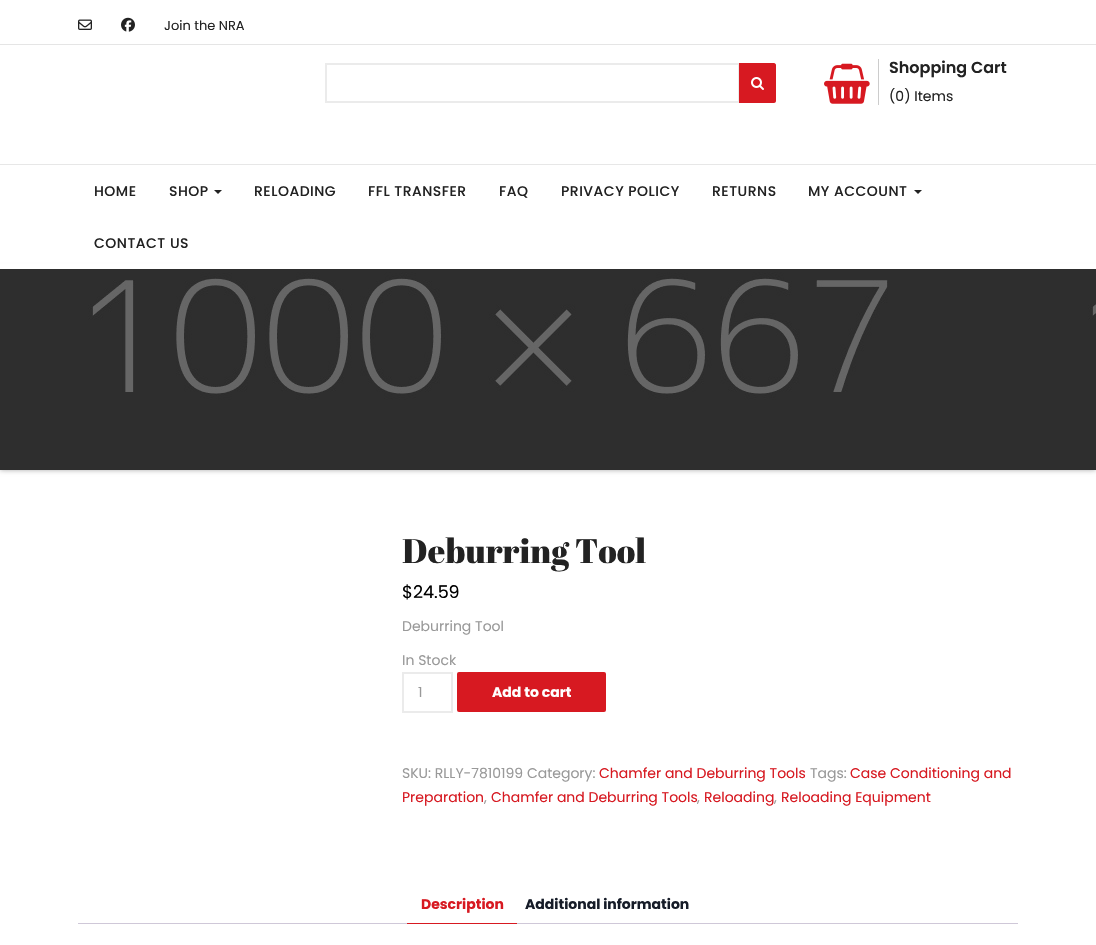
void draw(SkCanvas* canvas) {
  SkPaint paint;
  paint.setAntiAlias(true);
  auto face = [&](const char* family, int weight, float size, bool italic = false) {
    SkFontStyle style(weight, SkFontStyle::kNormal_Width,
      italic ? SkFontStyle::kItalic_Slant : SkFontStyle::kUpright_Slant);
    SkFont result(fontMgr->matchFamilyStyle(family, style), size);
    result.setSubpixel(true);
    return result;
  };
  auto writeSpaced = [&](const char* s, float x, float y, const SkFont& font, const SkPaint& ink, float letter, float word) {
    std::vector<SkGlyphID> glyphs(font.countText(s, strlen(s), SkTextEncoding::kUTF8));
    std::vector<float> xs(glyphs.size());
    font.textToGlyphs(s, strlen(s), SkTextEncoding::kUTF8, glyphs);
    font.getXPos(glyphs, xs, x);
    float extra = 0;
    for (size_t i = 0; i < glyphs.size(); i++) {
      xs[i] += extra;
      extra += letter + word * (glyphs[i] == font.unicharToGlyph(' '));
    }
    canvas->drawTextBlob(SkTextBlob::MakeFromPosHGlyphs(glyphs, xs, y, font), 0, 0, ink);
  };
  auto paste = [&](const char* path, float x, float y, float w, float h) {
    auto image = SkImages::DeferredFromEncodedData(SkData::MakeFromFileName(path));
    canvas->drawImageRect(image, SkRect::MakeXYWH(x, y, w, h), SkSamplingOptions());
  };
  auto shape = [&](const char* data, bool evenOdd = false) {
    SkPath result = *SkParsePath::FromSVGString(data);
    if (evenOdd) result.setFillType(SkPathFillType::kEvenOdd);
    return result;
  };
  canvas->clear(0xffffffff);
  paint.setColor(0xffe5e5e5);
  canvas->drawRect(SkRect::MakeXYWH(0, 44, 1096, 1), paint);
  paste("img/1.png", 78, 19, 14, 11);
  paste("img/2.png", 121, 17, 14, 15);
  paint.setStroke(true);
  paint.setStrokeWidth(2);
  paint.setColor(0xffebebeb);
  canvas->drawRect(SkRect::MakeXYWH(326, 64, 413, 38), paint);
  paint.setStroke(false);
  paint.setColor(0xffd71921);
  canvas->drawPath(shape("M739 63H774C775 63 776 64 776 65V101C776 102 775 103 774 103H739Z"), paint);
  paste("img/3.png", 751, 77, 13, 13);
  paste("img/4.png", 824, 63, 46, 41);
  paint.setColor(0xffcccccc);
  canvas->drawRect(SkRect::MakeXYWH(878, 59, 1, 46), paint);
  paint.setColor(0xffaaaaaa);
  paint.setMaskFilter(SkMaskFilter::MakeBlur(kNormal_SkBlurStyle, 2.5f));
  canvas->drawRect(SkRect::MakeXYWH(0, 269, 1096, 201), paint);
  paint.setMaskFilter(nullptr);
  paint.setColor(0xffffffff);
  canvas->drawRect(SkRect::MakeXYWH(0, 264, 1096, 5), paint);
  paint.setColor(0xffe7e7e7);
  canvas->drawRect(SkRect::MakeXYWH(0, 164, 1096, 1), paint);
  paint.setColor(0xff222222);
  canvas->drawPath(shape("M214 190H222L218 194Z"), paint);
  canvas->drawPath(shape("M914 190H922L918 194Z"), paint);
  paste("img/5.png", 0, 269, 1096, 201);
  paint.setStroke(true);
  paint.setColor(0xffebebeb);
  canvas->drawRect(SkRect::MakeXYWH(403, 673, 49, 39), paint);
  paint.setStroke(false);
  paint.setColor(0xffd71921);
  canvas->drawRoundRect(SkRect::MakeXYWH(457, 672, 149, 40), 2, 2, paint);
  paint.setColor(0xffcfc8d8);
  canvas->drawRect(SkRect::MakeXYWH(78, 923, 940, 1), paint);
  paint.setColor(0xffd71921);
  canvas->drawRect(SkRect::MakeXYWH(407, 923, 110, 1), paint);
  auto f0 = face("Poppins", 400, 13);
  paint.setColor(0xff222222);
  canvas->drawString("Join the NRA", 164, 30, f0, paint);
  auto f1 = face("Poppins", 600, 16);
  canvas->drawString("Shopping Cart", 889, 73, f1, paint);
  auto f2 = face("Poppins", 400, 14);
  canvas->drawString("(0) Items", 889, 101, f2, paint);
  auto f3 = face("Poppins", 500, 14);
  {
    const struct { const char* s; float x, y; } items[] = {
      {"HOME", 94, 196},
      {"SHOP", 169, 196},
      {"RELOADING", 254, 196},
      {"FFL TRANSFER", 368, 196},
      {"FAQ", 499, 196},
      {"PRIVACY POLICY", 561, 196},
      {"RETURNS", 712, 196},
      {"MY ACCOUNT", 808, 196},
      {"CONTACT US", 94, 248},
    };
    for (auto [s, x, y] : items) {
      writeSpaced(s, x, y, f3, paint, 0.5f, 0);
    }
  }
  auto f4 = face("Abril Fatface", 400, 34);
  canvas->drawString("Deburring Tool", 402, 563, f4, paint);
  auto f5 = face("Poppins", 400, 17.5f);
  paint.setColor(0xff000000);
  canvas->drawString("$24.59", 402, 598, f5, paint);
  paint.setColor(0xff999999);
  {
    const struct { const char* s; float x, y; } items[] = {
      {"Deburring Tool", 402, 631},
      {"In Stock", 402, 665},
      {"1", 418, 697},
    };
    for (auto [s, x, y] : items) {
      canvas->drawString(s, x, y, f2, paint);
    }
  }
  auto f6 = face("Poppins", 700, 14);
  paint.setColor(0xffffffff);
  canvas->drawString("Add to cart", 492, 697, f6, paint);
  paint.setColor(0xff999999);
  canvas->drawString("SKU: RLLY-7810199 Category:", 402, 778, f2, paint);
  paint.setColor(0xffd71921);
  canvas->drawString("Chamfer and Deburring Tools", 599, 778, f2, paint);
  paint.setColor(0xff999999);
  canvas->drawString("Tags:", 810, 778, f2, paint);
  paint.setColor(0xffd71921);
  canvas->drawString("Case Conditioning and", 850, 778, f2, paint);
  canvas->drawString("Preparation", 402, 802, f2, paint);
  paint.setColor(0xff999999);
  canvas->drawString(",", 484, 802, f2, paint);
  paint.setColor(0xffd71921);
  canvas->drawString("Chamfer and Deburring Tools", 491, 802, f2, paint);
  paint.setColor(0xff999999);
  canvas->drawString(",", 697, 802, f2, paint);
  paint.setColor(0xffd71921);
  canvas->drawString("Reloading", 704, 802, f2, paint);
  paint.setColor(0xff999999);
  canvas->drawString(",", 774, 802, f2, paint);
  paint.setColor(0xffd71921);
  canvas->drawString("Reloading Equipment", 781, 802, f2, paint);
  canvas->drawString("Description", 421, 909, f6, paint);
  paint.setColor(0xff161c28);
  canvas->drawString("Additional information", 525, 909, f6, paint);
}
